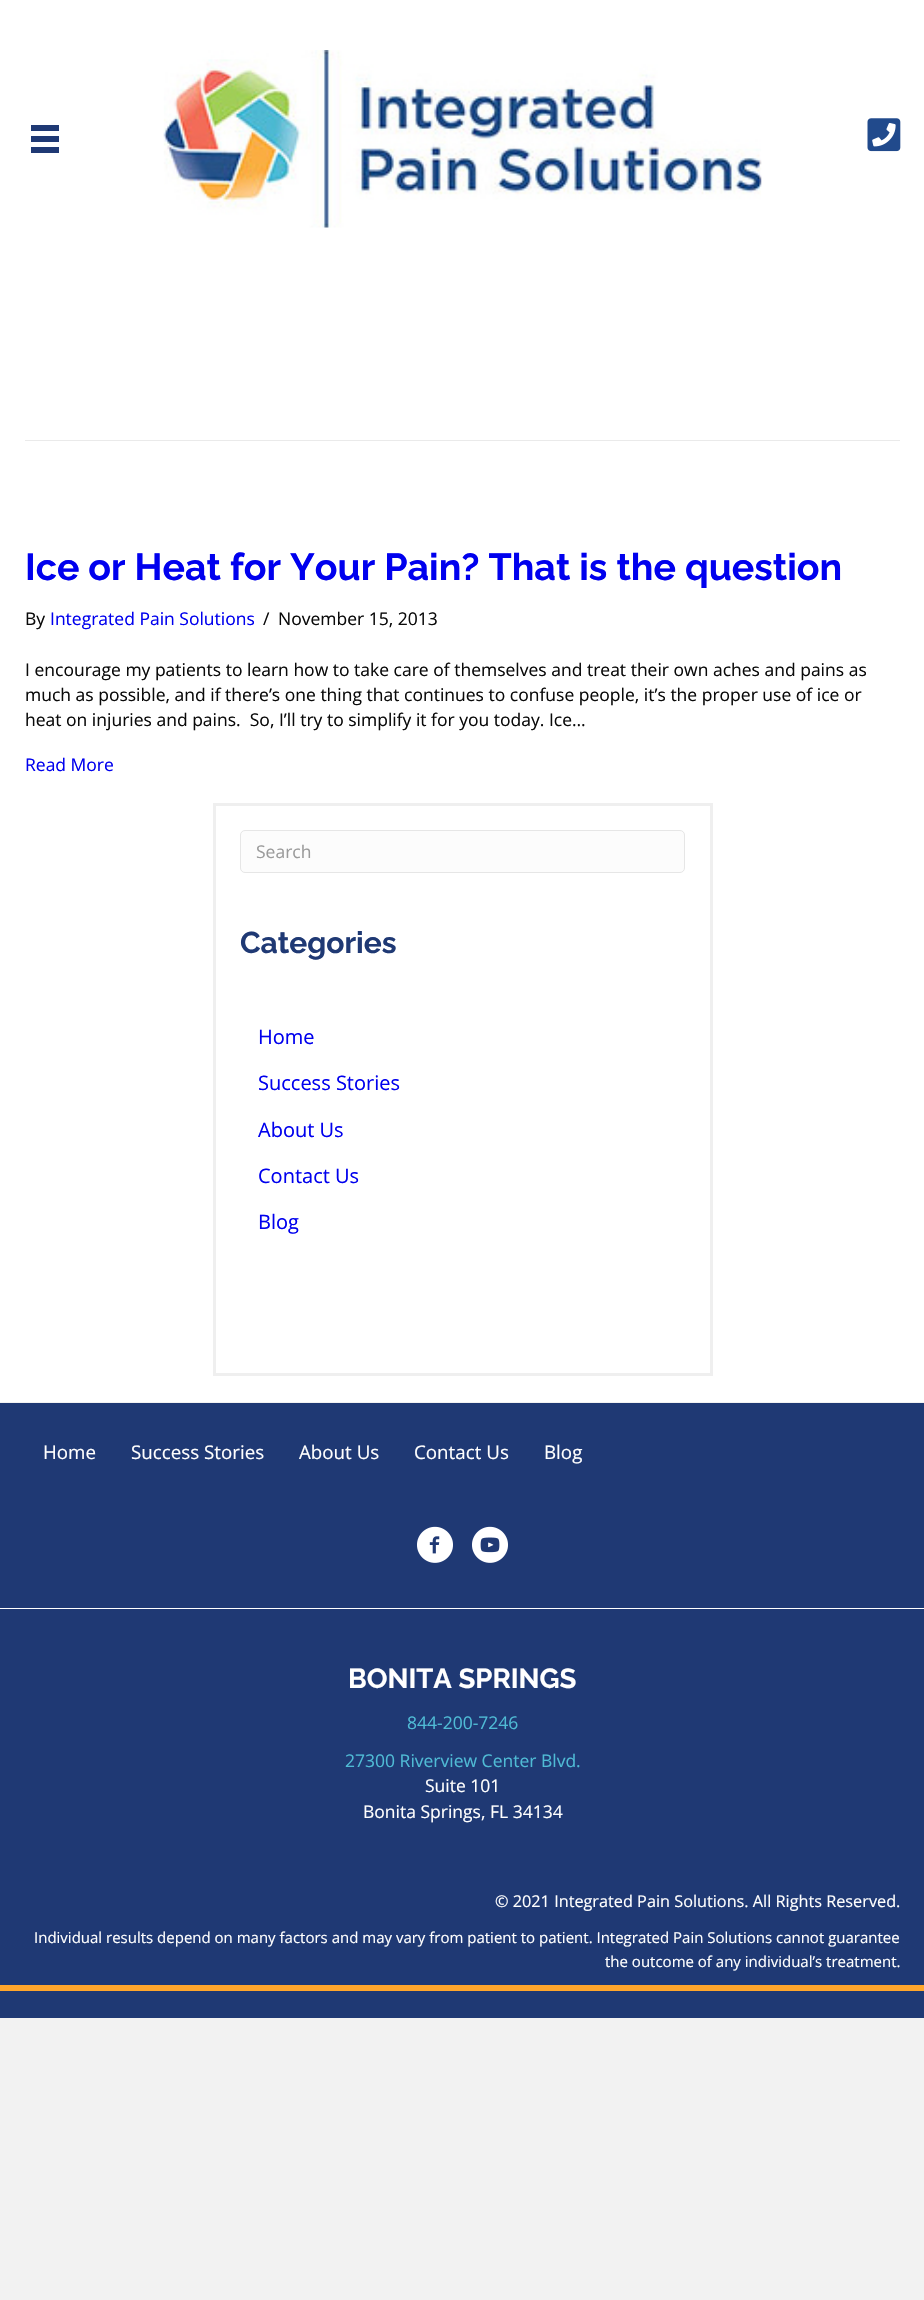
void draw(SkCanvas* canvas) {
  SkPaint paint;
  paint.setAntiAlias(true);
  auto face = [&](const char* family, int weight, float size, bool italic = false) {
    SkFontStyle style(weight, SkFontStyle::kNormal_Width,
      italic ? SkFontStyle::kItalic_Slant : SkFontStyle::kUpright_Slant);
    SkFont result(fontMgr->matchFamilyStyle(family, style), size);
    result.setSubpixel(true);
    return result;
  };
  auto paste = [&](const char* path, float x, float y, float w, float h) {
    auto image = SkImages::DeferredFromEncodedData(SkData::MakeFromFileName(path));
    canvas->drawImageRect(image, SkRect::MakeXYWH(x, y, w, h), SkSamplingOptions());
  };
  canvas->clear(0xfff2f2f2);
  {
    const struct { float x, y, w, h; SkColor color; } items[] = {
      {0, 0, 924, 1402, 0xffffffff},
      {31, 125, 28, 6, 0xff1f3974},
      {31, 136, 28, 6, 0xff1f3974},
      {31, 147, 28, 6, 0xff1f3974},
    };
    for (auto [x, y, w, h, color] : items) {
      paint.setColor(color);
      canvas->drawRect(SkRect::MakeXYWH(x, y, w, h), paint);
    }
  }
  paste("img/1.png", 163, 50, 599, 178);
  paste("img/2.png", 867, 118, 34, 34);
  paint.setColor(0xffeaeaea);
  canvas->drawRect(SkRect::MakeXYWH(25, 440, 875, 1), paint);
  paint.setStroke(true);
  paint.setStrokeWidth(3);
  paint.setColor(0xffefefef);
  canvas->drawRect(SkRect::MakeXYWH(214.5f, 804.5f, 497, 570), paint);
  paint.setStroke(false);
  paint.setColor(0xfffcfcfc);
  canvas->drawRoundRect(SkRect::MakeXYWH(240.5f, 830.5f, 444, 42), 4.5f, 4.5f, paint);
  paint.setStroke(true);
  paint.setStrokeWidth(1);
  paint.setColor(0xffe6e6e6);
  canvas->drawRoundRect(SkRect::MakeXYWH(240.5f, 830.5f, 444, 42), 4.5f, 4.5f, paint);
  paint.setStroke(false);
  paint.setColor(0xff1f3974);
  canvas->drawRect(SkRect::MakeXYWH(0, 1403, 924, 205), paint);
  paint.setColor(0xffffffff);
  canvas->drawRect(SkRect::MakeXYWH(0, 1608, 924, 1), paint);
  paste("img/3.png", 417, 1526, 36, 37);
  paste("img/4.png", 472, 1526, 36, 37);
  {
    const struct { float x, y, w, h; SkColor color; } items[] = {
      {0, 1609, 924, 376, 0xff1f3974},
      {0, 1985, 924, 6, 0xffffa62c},
      {0, 1991, 924, 27, 0xff1f3974},
    };
    for (auto [x, y, w, h, color] : items) {
      paint.setColor(color);
      canvas->drawRect(SkRect::MakeXYWH(x, y, w, h), paint);
    }
  }
  auto f0 = face("Raleway", 700, 37.5f);
  paint.setColor(0xff0000ee);
  canvas->drawString("Ice or Heat for Your Pain? That is the question", 25, 580, f0, paint);
  auto f1 = face("Open Sans", 400, 17.5f);
  paint.setColor(0xff0a0a0a);
  canvas->drawString("By", 25, 625, f1, paint);
  paint.setColor(0xff0000ee);
  canvas->drawString("Integrated Pain Solutions", 50, 625, f1, paint);
  paint.setColor(0xff0a0a0a);
  {
    const struct { const char* s; float x, y; } items[] = {
      {"/", 263, 625},
      {"November 15, 2013", 278, 625},
      {"I encourage my patients to learn how to take care of themselves and treat their own aches and pains as", 25, 676},
      {"much as possible, and if there’s one thing that continues to confuse people, it’s the proper use of ice or", 25, 701},
      {"heat on injuries and pains.  So, I’ll try to simplify it for you today. Ice…", 25, 726},
    };
    for (auto [s, x, y] : items) {
      canvas->drawString(s, x, y, f1, paint);
    }
  }
  paint.setColor(0xff0000ee);
  canvas->drawString("Read More", 25, 771, f1, paint);
  paint.setColor(0xff9b9b9b);
  canvas->drawString("Search", 256, 858, f1, paint);
  auto f2 = face("Raleway", 700, 30);
  paint.setColor(0xff1f3974);
  canvas->drawString("Categories", 240, 953, f2, paint);
  auto f3 = face("Open Sans", 400, 20);
  paint.setColor(0xff0000ee);
  {
    const struct { const char* s; float x, y; } items[] = {
      {"Home", 258, 1044},
      {"Success Stories", 258, 1090},
      {"About Us", 258, 1137},
      {"Contact Us", 258, 1183},
      {"Blog", 258, 1229},
    };
    for (auto [s, x, y] : items) {
      canvas->drawString(s, x, y, f3, paint);
    }
  }
  auto f4 = face("Open Sans", 400, 18.75f);
  paint.setColor(0xffffffff);
  {
    const struct { const char* s; float x, y; } items[] = {
      {"Home", 43, 1459},
      {"Success Stories", 131, 1459},
      {"About Us", 299, 1459},
      {"Contact Us", 414, 1459},
      {"Blog", 544, 1459},
    };
    for (auto [s, x, y] : items) {
      canvas->drawString(s, x, y, f4, paint);
    }
  }
  auto f5 = face("Raleway", 700, 27.5f);
  canvas->drawString("BONITA SPRINGS", 348, 1688, f5, paint);
  paint.setColor(0xff4fbbd5);
  canvas->drawString("844-200-7246", 407, 1729, f1, paint);
  canvas->drawString("27300 Riverview Center Blvd.", 345, 1767, f1, paint);
  paint.setColor(0xffffffff);
  canvas->drawString("Suite 101", 425, 1792, f1, paint);
  canvas->drawString("Bonita Springs, FL 34134", 363, 1818, f1, paint);
  auto f6 = face("Open Sans", 400, 16.25f);
  canvas->drawString("© 2021 Integrated Pain Solutions. All Rights Reserved.", 495, 1907, f6, paint);
  auto f7 = face("Open Sans", 400, 15);
  canvas->drawString("Individual results depend on many factors and may vary from patient to patient. Integrated Pain Solutions cannot guarantee", 34, 1943, f7, paint);
  canvas->drawString("the outcome of any individual’s treatment.", 605, 1967, f7, paint);
}
